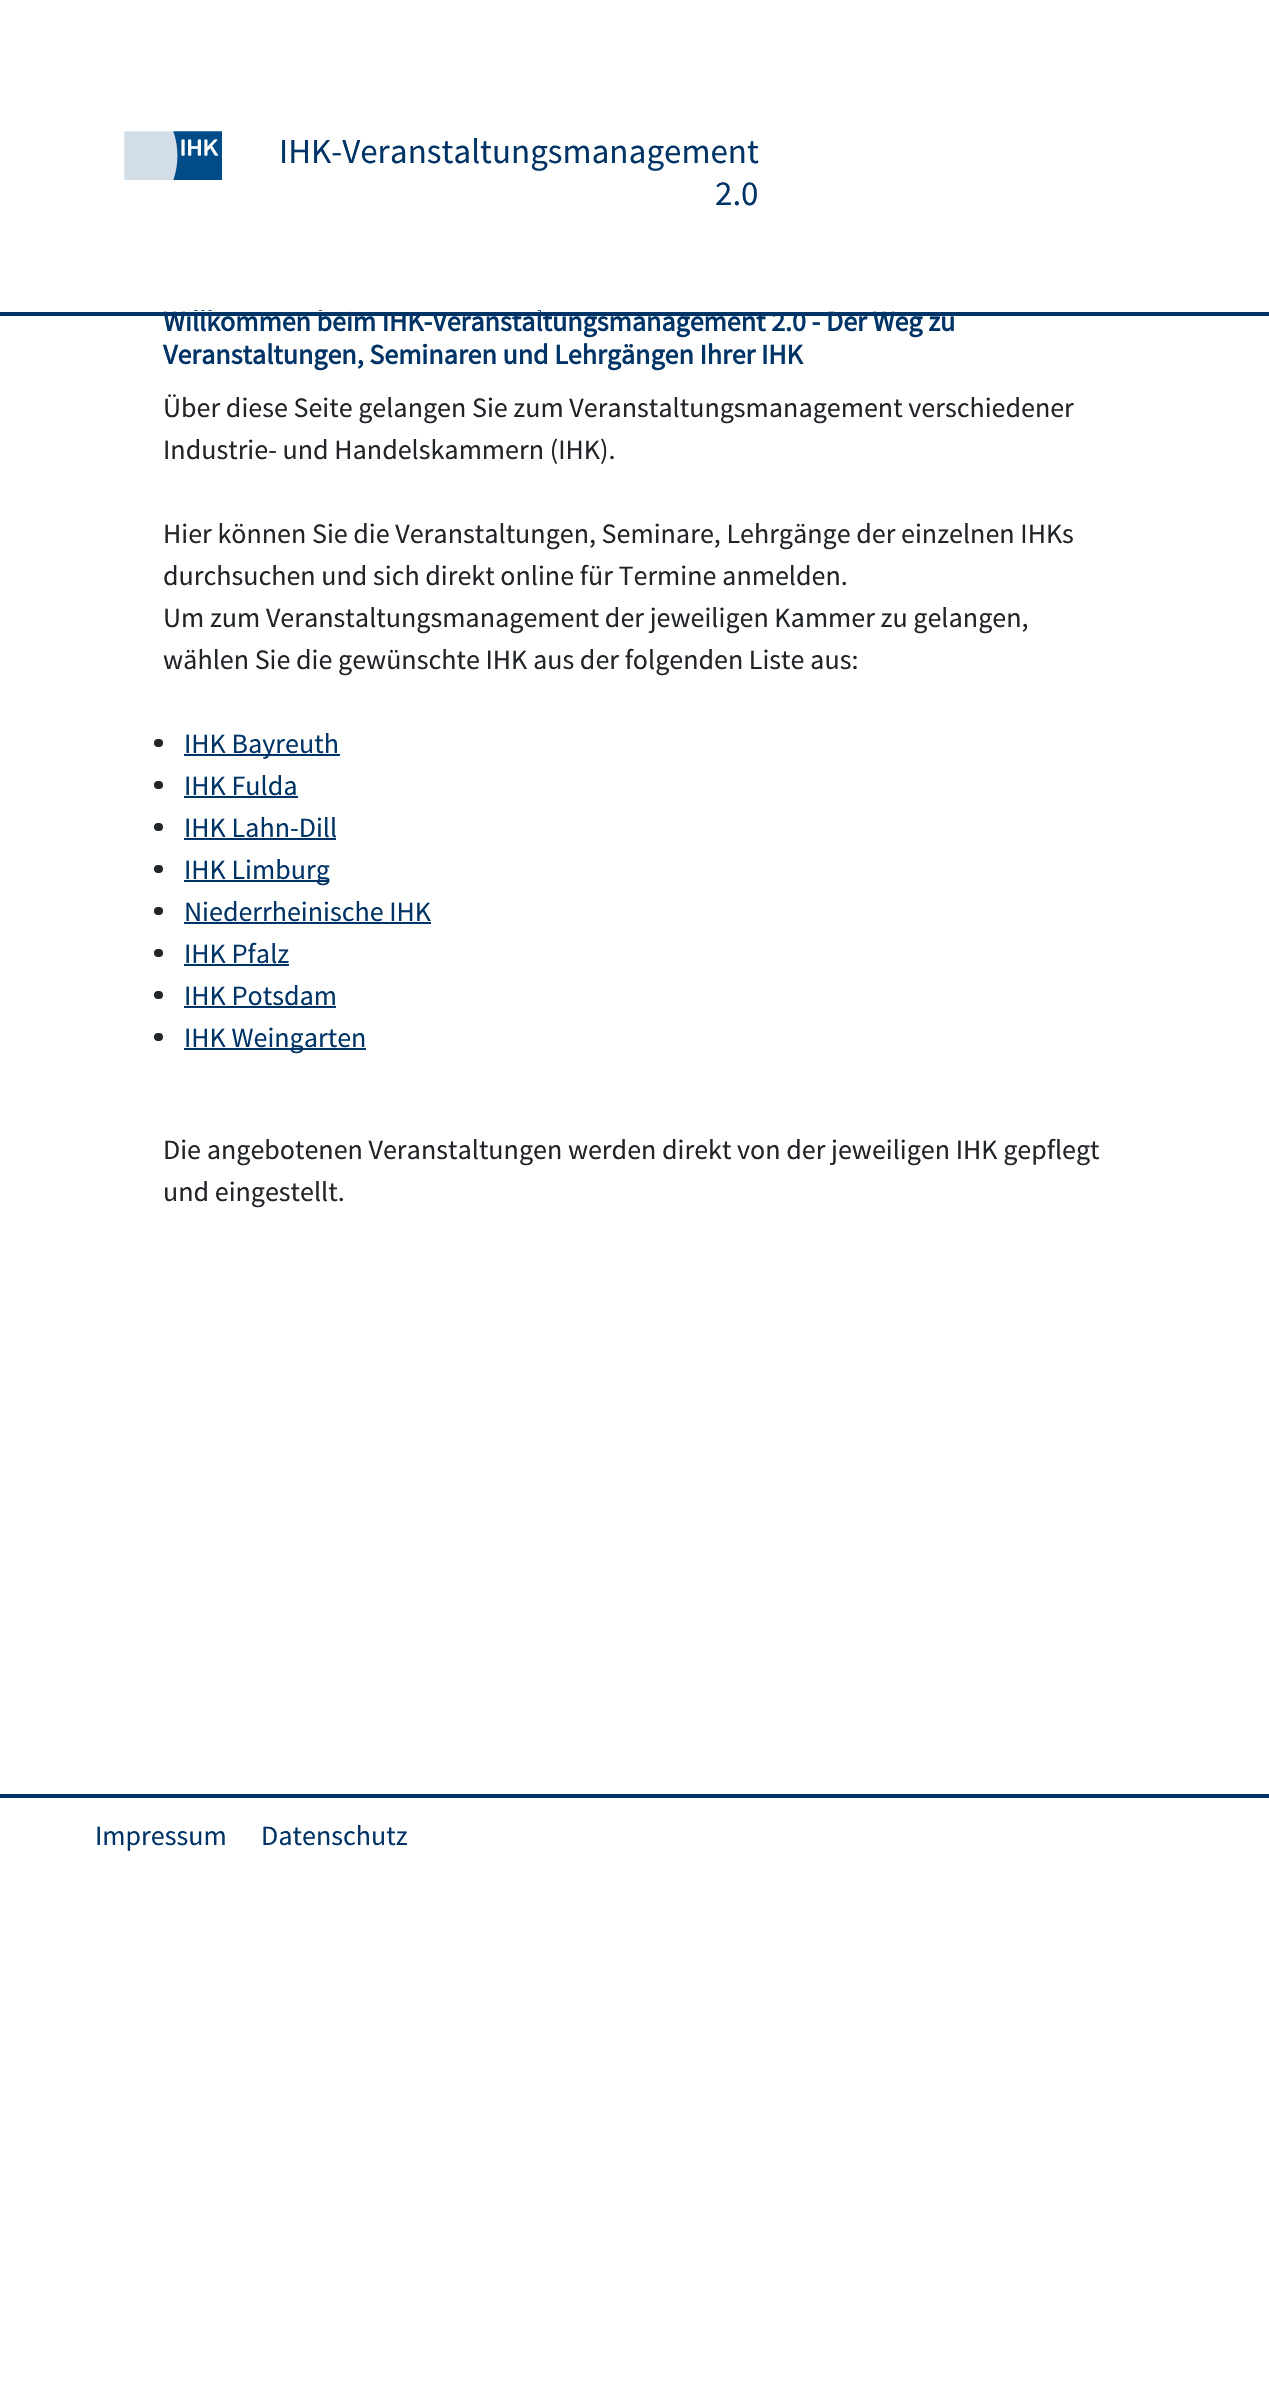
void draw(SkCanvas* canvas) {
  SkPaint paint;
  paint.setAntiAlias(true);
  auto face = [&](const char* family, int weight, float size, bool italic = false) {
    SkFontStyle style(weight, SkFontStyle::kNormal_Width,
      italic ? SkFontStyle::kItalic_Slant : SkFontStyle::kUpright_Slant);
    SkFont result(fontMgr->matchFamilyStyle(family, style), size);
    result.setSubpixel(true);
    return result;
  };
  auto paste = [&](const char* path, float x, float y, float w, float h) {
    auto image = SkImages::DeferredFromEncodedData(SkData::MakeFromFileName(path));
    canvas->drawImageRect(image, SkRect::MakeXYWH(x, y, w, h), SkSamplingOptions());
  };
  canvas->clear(0xffffffff);
  paint.setColor(0xff003366);
  canvas->drawRect(SkRect::MakeXYWH(0, 312, 1269, 4), paint);
  paste("img/1.png", 124, 131, 98, 49);
  paint.setColor(0xff212529);
  canvas->drawRoundRect(SkRect::MakeXYWH(154, 739, 9, 8), 4, 4, paint);
  paint.setColor(0xff003366);
  canvas->drawRect(SkRect::MakeXYWH(184, 754, 156, 2), paint);
  paint.setColor(0xff212529);
  canvas->drawRoundRect(SkRect::MakeXYWH(154, 781, 9, 8), 4, 4, paint);
  paint.setColor(0xff003366);
  canvas->drawRect(SkRect::MakeXYWH(184, 796, 114, 2), paint);
  paint.setColor(0xff212529);
  canvas->drawRoundRect(SkRect::MakeXYWH(154, 823, 9, 8), 4, 4, paint);
  paint.setColor(0xff003366);
  canvas->drawRect(SkRect::MakeXYWH(184, 838, 152, 2), paint);
  paint.setColor(0xff212529);
  canvas->drawRoundRect(SkRect::MakeXYWH(154, 865, 9, 8), 4, 4, paint);
  paint.setColor(0xff003366);
  canvas->drawRect(SkRect::MakeXYWH(184, 880, 145, 2), paint);
  paint.setColor(0xff212529);
  canvas->drawRoundRect(SkRect::MakeXYWH(154, 907, 9, 8), 4, 4, paint);
  paint.setColor(0xff003366);
  canvas->drawRect(SkRect::MakeXYWH(184, 922, 247, 2), paint);
  paint.setColor(0xff212529);
  canvas->drawRoundRect(SkRect::MakeXYWH(154, 949, 9, 8), 4, 4, paint);
  paint.setColor(0xff003366);
  canvas->drawRect(SkRect::MakeXYWH(184, 964, 105, 2), paint);
  paint.setColor(0xff212529);
  canvas->drawRoundRect(SkRect::MakeXYWH(154, 991, 9, 8), 4, 4, paint);
  paint.setColor(0xff003366);
  canvas->drawRect(SkRect::MakeXYWH(184, 1006, 152, 2), paint);
  paint.setColor(0xff212529);
  canvas->drawRoundRect(SkRect::MakeXYWH(154, 1033, 9, 8), 4, 4, paint);
  paint.setColor(0xff003366);
  canvas->drawRect(SkRect::MakeXYWH(184, 1048, 182, 2), paint);
  canvas->drawRect(SkRect::MakeXYWH(0, 1794, 1269, 4), paint);
  auto f0 = face("Source Sans Pro", 400, 35);
  canvas->drawString("IHK-Veranstaltungsmanagement", 279, 163, f0, paint);
  canvas->drawString("2.0", 715, 205, f0, paint);
  auto f1 = face("Source Sans Pro", 700, 28);
  canvas->drawString("Willkommen beim IHK-Veranstaltungsmanagement 2.0 - Der Weg zu", 163, 331, f1, paint);
  paint.setColor(0xffffffff);
  canvas->drawRect(SkRect::MakeXYWH(187, 311, 353, 1), paint);
  paint.setColor(0xff003366);
  canvas->drawString("Veranstaltungen, Seminaren und Lehrgängen Ihrer IHK", 163, 364, f1, paint);
  auto f2 = face("Source Sans Pro", 400, 28);
  paint.setColor(0xff212529);
  {
    const struct { const char* s; float x, y; } items[] = {
      {"Über diese Seite gelangen Sie zum Veranstaltungsmanagement verschiedener", 163, 417},
      {"Industrie- und Handelskammern (IHK).", 163, 459},
      {"Hier können Sie die Veranstaltungen, Seminare, Lehrgänge der einzelnen IHKs", 163, 543},
      {"durchsuchen und sich direkt online für Termine anmelden.", 163, 585},
      {"Um zum Veranstaltungsmanagement der jeweiligen Kammer zu gelangen,", 163, 627},
      {"wählen Sie die gewünschte IHK aus der folgenden Liste aus:", 163, 669},
    };
    for (auto [s, x, y] : items) {
      canvas->drawString(s, x, y, f2, paint);
    }
  }
  paint.setColor(0xff003366);
  {
    const struct { const char* s; float x, y; } items[] = {
      {"IHK Bayreuth", 184, 753},
      {"IHK Fulda", 184, 795},
      {"IHK Lahn-Dill", 184, 837},
      {"IHK Limburg", 184, 879},
      {"Niederrheinische IHK", 184, 921},
      {"IHK Pfalz", 184, 963},
      {"IHK Potsdam", 184, 1005},
      {"IHK Weingarten", 184, 1047},
    };
    for (auto [s, x, y] : items) {
      canvas->drawString(s, x, y, f2, paint);
    }
  }
  paint.setColor(0xff212529);
  canvas->drawString("Die angebotenen Veranstaltungen werden direkt von der jeweiligen IHK gepflegt", 163, 1159, f2, paint);
  canvas->drawString("und eingestellt.", 163, 1201, f2, paint);
  paint.setColor(0xff003366);
  canvas->drawString("Impressum", 95, 1845, f2, paint);
  canvas->drawString("Datenschutz", 261, 1845, f2, paint);
}
